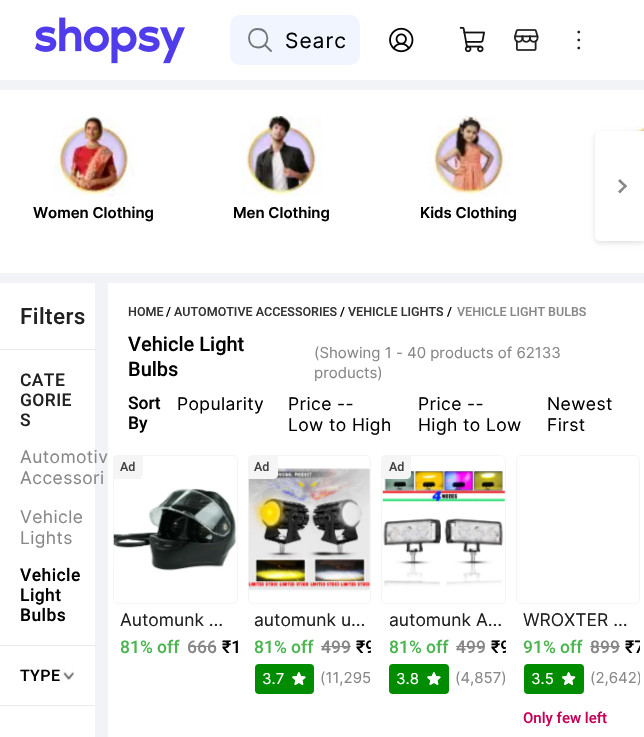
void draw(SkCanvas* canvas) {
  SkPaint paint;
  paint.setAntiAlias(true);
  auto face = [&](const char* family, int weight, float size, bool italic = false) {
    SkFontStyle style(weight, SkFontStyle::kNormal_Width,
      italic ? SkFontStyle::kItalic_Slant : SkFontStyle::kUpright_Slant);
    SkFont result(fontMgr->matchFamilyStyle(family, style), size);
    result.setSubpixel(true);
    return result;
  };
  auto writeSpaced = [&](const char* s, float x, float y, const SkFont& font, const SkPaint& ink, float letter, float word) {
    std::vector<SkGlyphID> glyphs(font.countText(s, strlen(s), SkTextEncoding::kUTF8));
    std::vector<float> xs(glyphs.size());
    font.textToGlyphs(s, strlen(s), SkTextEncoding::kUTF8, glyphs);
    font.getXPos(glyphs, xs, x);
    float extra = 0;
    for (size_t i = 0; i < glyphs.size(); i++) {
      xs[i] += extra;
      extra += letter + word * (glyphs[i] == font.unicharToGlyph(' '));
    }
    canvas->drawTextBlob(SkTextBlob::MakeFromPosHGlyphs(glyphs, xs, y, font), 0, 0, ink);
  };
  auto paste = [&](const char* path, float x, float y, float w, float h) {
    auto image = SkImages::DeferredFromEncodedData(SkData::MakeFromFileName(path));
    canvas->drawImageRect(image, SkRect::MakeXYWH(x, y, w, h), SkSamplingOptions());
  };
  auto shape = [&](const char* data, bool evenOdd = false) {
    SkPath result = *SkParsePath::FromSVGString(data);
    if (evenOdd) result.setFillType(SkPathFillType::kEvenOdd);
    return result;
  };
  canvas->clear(0xfff1f3f6);
  paint.setColor(0xffffffff);
  canvas->drawRect(SkRect::MakeXYWH(0, 0, 644, 80), paint);
  paste("img/1.png", 35, 17, 150, 47);
  paint.setColor(0xfff0f5ff);
  canvas->drawRoundRect(SkRect::MakeXYWH(230, 15, 130, 50), 10, 10, paint);
  paint.setStroke(true);
  paint.setStrokeWidth(1.8f);
  paint.setStrokeCap(SkPaint::kRound_Cap);
  paint.setStrokeJoin(SkPaint::kRound_Join);
  paint.setColor(0xff717478);
  canvas->drawPath(shape("M258 47.5C270.5 47.5 270.5 29 258 29C246 28.5 246 47.5 258 47.5ZM265 45L271 51"), paint);
  paste("img/2.png", 389, 27, 25, 26);
  paste("img/3.png", 459, 26, 26, 27);
  paste("img/4.png", 514, 29, 25, 22);
  paste("img/5.png", 577, 30, 4, 20);
  paint.setStroke(false);
  paint.setColor(0xffffffff);
  canvas->drawRect(SkRect::MakeXYWH(0, 90, 644, 183), paint);
  paste("img/6.png", 616, 126, 28, 5);
  paste("img/7.png", 54, 116, 80, 80);
  paste("img/8.png", 241, 116, 81, 80);
  paste("img/9.png", 429, 116, 80, 80);
  paint.setColor(0x1f000000);
  paint.setMaskFilter(SkMaskFilter::MakeBlur(kNormal_SkBlurStyle, 2.5f));
  canvas->drawRoundRect(SkRect::MakeXYWH(595, 133, 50, 110), 5, 5, paint);
  paint.setMaskFilter(nullptr);
  paint.setColor(0xffffffff);
  canvas->drawPath(shape("M600 131H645V241H600C597 241 595 239 595 236V136C595 133 597 131 600 131Z"), paint);
  paint.setColor(0xff878787);
  canvas->drawPath(shape("M620 179L627 186L625.5 188L618 181Z"), paint);
  canvas->drawPath(shape("M625.5 184.5L627 186L620 193.5L618 191.5Z"), paint);
  {
    const struct { float x, y, w, h; SkColor color; } items[] = {
      {0, 283, 95, 454, 0xffffffff},
      {0, 349, 95, 1, 0xffeaeaea},
      {0, 645, 95, 1, 0xffeaeaea},
    };
    for (auto [x, y, w, h, color] : items) {
      paint.setColor(color);
      canvas->drawRect(SkRect::MakeXYWH(x, y, w, h), paint);
    }
  }
  paste("img/10.png", 63, 671, 11, 10);
  canvas->drawRect(SkRect::MakeXYWH(0, 705, 95, 1), paint);
  paint.setColor(0xffffffff);
  canvas->drawRect(SkRect::MakeXYWH(108, 283, 536, 454), paint);
  paint.setStroke(true);
  paint.setStrokeWidth(1);
  paint.setStrokeCap(SkPaint::kButt_Cap);
  paint.setStrokeJoin(SkPaint::kMiter_Join);
  paint.setColor(0xfff5f5f5);
  canvas->drawRoundRect(SkRect::MakeXYWH(113.5f, 455.5f, 124, 148), 4.5f, 4.5f, paint);
  paint.setStroke(false);
  canvas->drawPath(shape("M118 455H143V474C143 477 141 479 138 479H113V460C113 457 115 455 118 455Z"), paint);
  paste("img/11.png", 113, 488, 123, 83);
  paint.setColor(0xff878787);
  canvas->drawRect(SkRect::MakeXYWH(188, 646, 28, 1), paint);
  paint.setStroke(true);
  paint.setColor(0xfff5f5f5);
  canvas->drawRoundRect(SkRect::MakeXYWH(248.5f, 455.5f, 122, 148), 4.5f, 4.5f, paint);
  paste("img/12.png", 248, 468, 122, 123);
  paint.setStroke(false);
  canvas->drawPath(shape("M253 455H278V474C278 477 276 479 273 479H248V460C248 457 250 455 253 455Z"), paint);
  paint.setColor(0xff878787);
  canvas->drawRect(SkRect::MakeXYWH(321, 646, 30, 1), paint);
  paint.setColor(0xff008c00);
  canvas->drawRoundRect(SkRect::MakeXYWH(255, 664, 59, 30), 4, 4, paint);
  paste("img/13.png", 292, 672, 14, 13);
  paint.setStroke(true);
  paint.setColor(0xfff5f5f5);
  canvas->drawRoundRect(SkRect::MakeXYWH(381.5f, 455.5f, 124, 148), 4.5f, 4.5f, paint);
  paste("img/14.png", 382, 471, 124, 116);
  paint.setStroke(false);
  canvas->drawPath(shape("M386 455H411V474C411 477 409 479 406 479H381V460C381 457 383 455 386 455Z"), paint);
  paint.setColor(0xff878787);
  canvas->drawRect(SkRect::MakeXYWH(456, 646, 29, 1), paint);
  paint.setColor(0xff008c00);
  canvas->drawRoundRect(SkRect::MakeXYWH(389, 664, 60, 30), 4, 4, paint);
  paste("img/15.png", 427, 672, 14, 13);
  paint.setStroke(true);
  paint.setColor(0xfff5f5f5);
  canvas->drawRoundRect(SkRect::MakeXYWH(516.5f, 455.5f, 123, 148), 4.5f, 4.5f, paint);
  paint.setStroke(false);
  paint.setColor(0xff878787);
  canvas->drawRect(SkRect::MakeXYWH(590, 646, 30, 1), paint);
  paint.setColor(0xff008c00);
  canvas->drawRoundRect(SkRect::MakeXYWH(524, 664, 60, 30), 4, 4, paint);
  paste("img/16.png", 562, 672, 14, 13);
  auto f0 = face("Inter", 400, 21);
  paint.setColor(0xff000000);
  writeSpaced("Searc", 285, 48, f0, paint, 1, 0);
  auto f1 = face("Inter", 600, 15);
  {
    const struct { const char* s; float x, y; } items[] = {
      {"Women Clothing", 33, 218},
      {"Men Clothing", 233, 218},
      {"Kids Clothing", 420, 218},
    };
    for (auto [s, x, y] : items) {
      canvas->drawString(s, x, y, f1, paint);
    }
  }
  auto f2 = face("Roboto", 500, 22.5f);
  paint.setColor(0xff212121);
  writeSpaced("Filters", 20, 324, f2, paint, 0.4f, 0);
  auto f3 = face("Roboto", 500, 17.5f);
  {
    const struct { const char* s; float x, y; } items[] = {
      {"CATE", 20, 386},
      {"GORIE", 20, 406},
      {"S", 20, 426},
    };
    for (auto [s, x, y] : items) {
      writeSpaced(s, x, y, f3, paint, 0.4f, 0);
    }
  }
  auto f4 = face("Inter", 400, 17.5f);
  paint.setColor(0xff878787);
  {
    const struct { const char* s; float x, y; } items[] = {
      {"Automotiv", 20, 463},
      {"Accessori", 20, 484},
      {"Vehicle", 20, 523},
      {"Lights", 20, 544},
    };
    for (auto [s, x, y] : items) {
      writeSpaced(s, x, y, f4, paint, 0.4f, 0);
    }
  }
  paint.setColor(0xff000000);
  {
    const struct { const char* s; float x, y; } items[] = {
      {"Vehicle", 20, 581},
      {"Light", 20, 601},
      {"Bulbs", 20, 621},
    };
    for (auto [s, x, y] : items) {
      writeSpaced(s, x, y, f3, paint, 0.4f, 0);
    }
  }
  auto f5 = face("Roboto", 500, 16);
  writeSpaced("TYPE", 20, 681, f5, paint, 0.4f, 0);
  auto f6 = face("Roboto", 500, 12.5f);
  paint.setColor(0xff333333);
  canvas->drawString("HOME", 128, 316, f6, paint);
  paint.setColor(0xff000000);
  canvas->drawString("/", 166, 316, f6, paint);
  paint.setColor(0xff333333);
  canvas->drawString("AUTOMOTIVE ACCESSORIES", 174, 316, f6, paint);
  paint.setColor(0xff000000);
  canvas->drawString("/", 340, 316, f6, paint);
  paint.setColor(0xff333333);
  canvas->drawString("VEHICLE LIGHTS", 348, 316, f6, paint);
  paint.setColor(0xff000000);
  canvas->drawString("/", 447, 316, f6, paint);
  paint.setColor(0xff878787);
  canvas->drawString("VEHICLE LIGHT BULBS", 457, 316, f6, paint);
  auto f7 = face("Roboto", 500, 20);
  paint.setColor(0xff000000);
  canvas->drawString("Vehicle Light", 128, 351, f7, paint);
  canvas->drawString("Bulbs", 128, 376, f7, paint);
  auto f8 = face("Inter", 400, 15);
  paint.setColor(0xff878787);
  canvas->drawString("(Showing 1 - 40 products of 62133", 314, 358, f8, paint);
  canvas->drawString("products)", 314, 378, f8, paint);
  paint.setColor(0xff000000);
  canvas->drawString("Sort", 128, 409, f3, paint);
  canvas->drawString("By", 128, 429, f3, paint);
  {
    const struct { const char* s; float x, y; } items[] = {
      {"Popularity", 177, 410},
      {"Price --", 288, 410},
      {"Low to High", 288, 431},
      {"Price --", 418, 410},
      {"High to Low", 418, 431},
      {"Newest", 547, 410},
      {"First", 547, 431},
    };
    for (auto [s, x, y] : items) {
      writeSpaced(s, x, y, f4, paint, 0.4f, 0);
    }
  }
  paint.setColor(0xff424242);
  canvas->drawString("Ad", 120, 471, f6, paint);
  paint.setColor(0xff212121);
  canvas->drawString("Automunk …", 120, 626, f4, paint);
  paint.setColor(0xff4bb550);
  canvas->drawString("81% off", 120, 653, f3, paint);
  paint.setColor(0xff878787);
  canvas->drawString("666", 187, 653, f3, paint);
  paint.setColor(0xff000000);
  canvas->drawString("₹1", 222, 653, f3, paint);
  paint.setColor(0xff424242);
  canvas->drawString("Ad", 254, 471, f6, paint);
  paint.setColor(0xff212121);
  canvas->drawString("automunk u…", 254, 626, f4, paint);
  paint.setColor(0xff4bb550);
  canvas->drawString("81% off", 254, 653, f3, paint);
  paint.setColor(0xff878787);
  canvas->drawString("499", 321, 653, f3, paint);
  canvas->save();
  canvas->clipRect(SkRect::MakeXYWH(248, 445, 123, 270));
  paint.setColor(0xff000000);
  canvas->drawString("₹9", 356, 653, f3, paint);
  canvas->restore();
  paint.setColor(0xffffffff);
  canvas->drawString("3.7", 262, 684, f8, paint);
  paint.setColor(0xff878787);
  canvas->drawString("(11,295", 320, 683, f8, paint);
  paint.setColor(0xff424242);
  canvas->drawString("Ad", 389, 471, f6, paint);
  paint.setColor(0xff212121);
  canvas->drawString("automunk A…", 389, 626, f4, paint);
  paint.setColor(0xff4bb550);
  canvas->drawString("81% off", 389, 653, f3, paint);
  paint.setColor(0xff878787);
  canvas->drawString("499", 456, 653, f3, paint);
  canvas->save();
  canvas->clipRect(SkRect::MakeXYWH(381, 445, 125, 270));
  paint.setColor(0xff000000);
  canvas->drawString("₹9", 491, 653, f3, paint);
  canvas->restore();
  paint.setColor(0xffffffff);
  canvas->drawString("3.8", 396, 684, f8, paint);
  paint.setColor(0xff878787);
  canvas->drawString("(4,857)", 455, 683, f8, paint);
  paint.setColor(0xff212121);
  canvas->drawString("WROXTER …", 523, 626, f4, paint);
  paint.setColor(0xff4bb550);
  canvas->drawString("91% off", 523, 653, f3, paint);
  paint.setColor(0xff878787);
  canvas->drawString("899", 590, 653, f3, paint);
  canvas->save();
  canvas->clipRect(SkRect::MakeXYWH(516, 445, 124, 286));
  paint.setColor(0xff000000);
  canvas->drawString("₹7", 625, 653, f3, paint);
  canvas->restore();
  paint.setColor(0xffffffff);
  canvas->drawString("3.5", 531, 684, f8, paint);
  canvas->save();
  canvas->clipRect(SkRect::MakeXYWH(590, 669, 50, 21));
  paint.setColor(0xff878787);
  canvas->drawString("(2,642)", 590, 683, f8, paint);
  canvas->restore();
  auto f9 = face("Roboto", 500, 15);
  paint.setColor(0xffc70055);
  canvas->drawString("Only few left", 523, 723, f9, paint);
}
